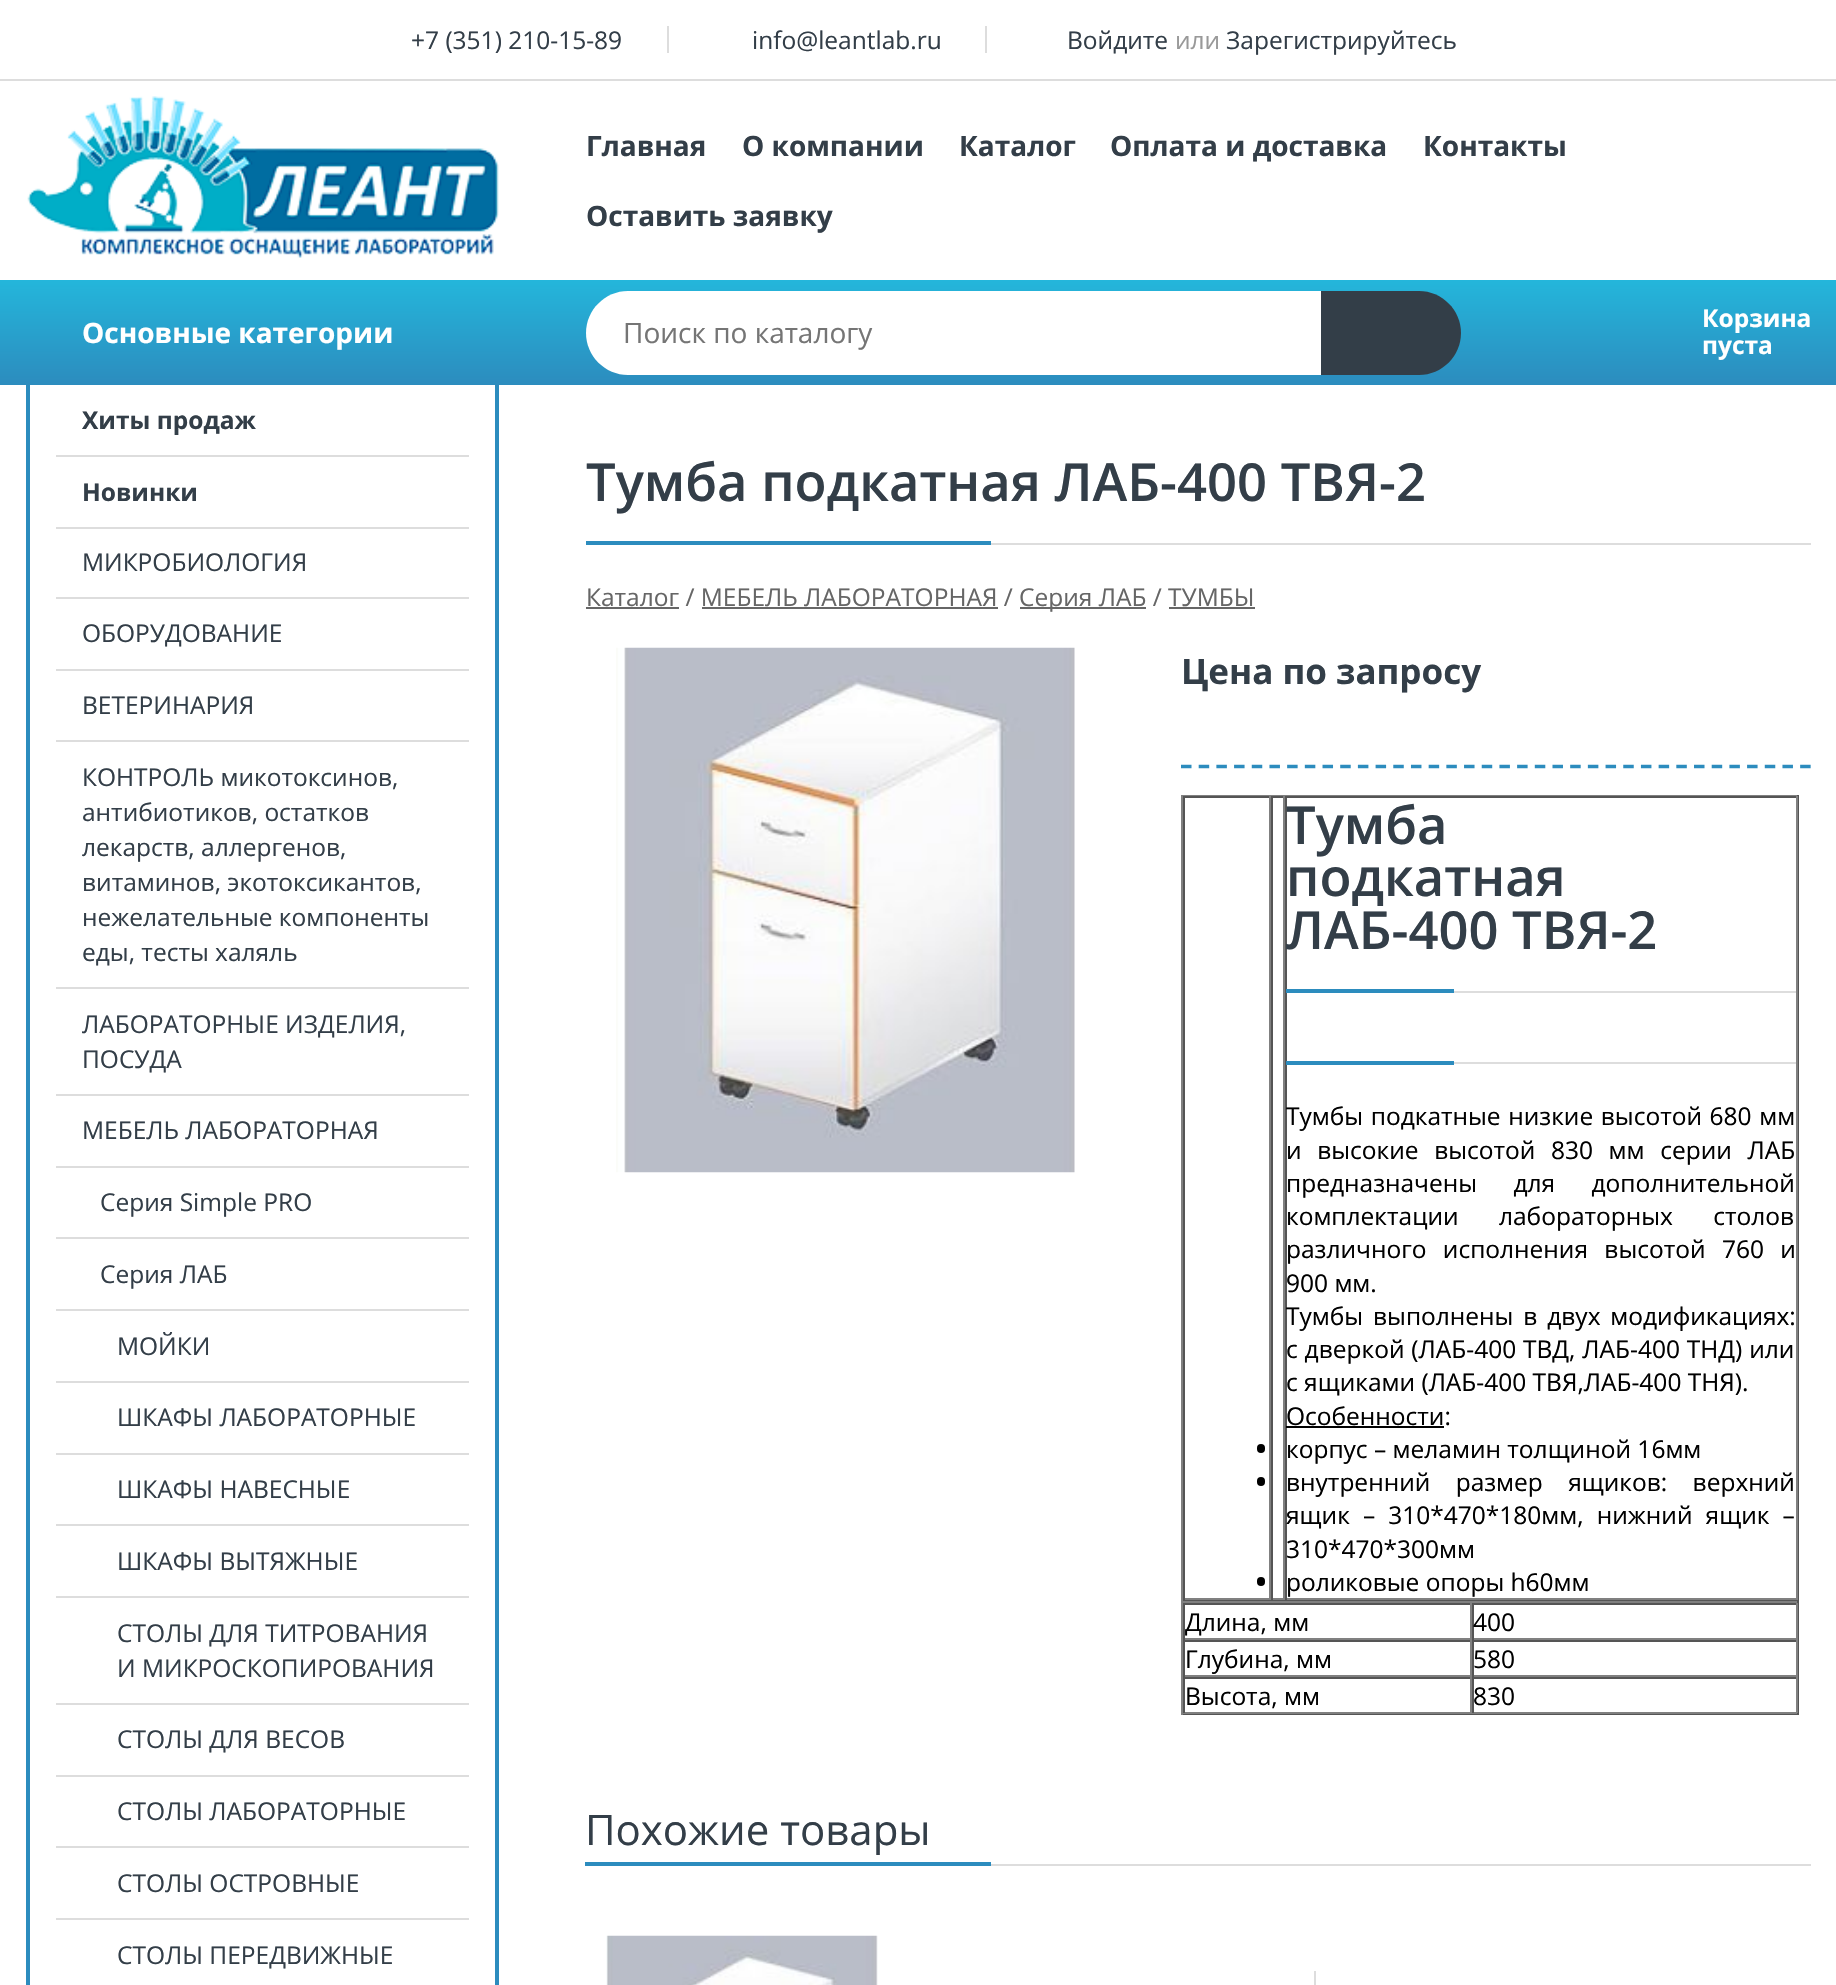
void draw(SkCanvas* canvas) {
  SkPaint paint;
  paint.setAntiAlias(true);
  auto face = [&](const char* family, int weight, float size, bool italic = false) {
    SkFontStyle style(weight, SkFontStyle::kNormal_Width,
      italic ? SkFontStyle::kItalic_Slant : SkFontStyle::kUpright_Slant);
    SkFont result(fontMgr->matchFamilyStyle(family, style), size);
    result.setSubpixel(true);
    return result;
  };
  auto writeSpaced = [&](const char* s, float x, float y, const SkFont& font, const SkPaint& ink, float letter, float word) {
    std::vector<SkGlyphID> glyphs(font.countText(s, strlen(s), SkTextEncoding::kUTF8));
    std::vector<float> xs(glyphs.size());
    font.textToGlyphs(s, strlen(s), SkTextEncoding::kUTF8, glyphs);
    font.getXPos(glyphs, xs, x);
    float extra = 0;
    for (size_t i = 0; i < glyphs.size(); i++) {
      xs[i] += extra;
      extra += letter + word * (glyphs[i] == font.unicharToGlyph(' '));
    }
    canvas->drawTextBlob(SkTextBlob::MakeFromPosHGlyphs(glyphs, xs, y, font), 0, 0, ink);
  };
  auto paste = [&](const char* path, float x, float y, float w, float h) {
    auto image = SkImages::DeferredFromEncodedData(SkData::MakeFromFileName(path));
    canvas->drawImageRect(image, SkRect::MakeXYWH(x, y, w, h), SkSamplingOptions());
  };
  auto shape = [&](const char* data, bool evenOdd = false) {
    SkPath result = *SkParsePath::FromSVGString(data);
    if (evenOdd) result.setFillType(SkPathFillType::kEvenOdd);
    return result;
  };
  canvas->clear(0xffffffff);
  {
    const struct { float x, y, w, h; SkColor color; } items[] = {
      {0, 79, 1836, 2, 0xffdddddd},
      {667, 26, 2, 27, 0xffdddddd},
      {985, 26, 2, 27, 0xffdddddd},
    };
    for (auto [x, y, w, h, color] : items) {
      paint.setColor(color);
      canvas->drawRect(SkRect::MakeXYWH(x, y, w, h), paint);
    }
  }
  paste("img/1.png", 27, 96, 472, 162);
  {
    const SkColor colors[] = {0xff24b6db, 0xff2c8cbe};
    const float stops[] = {0, 1};
    const SkPoint ends[] = {{919, 280}, {919, 385}};
    paint.setShader(SkGradientShader::MakeLinear(ends, colors, stops, 2, SkTileMode::kClamp));
    paint.setAlpha(255);
  }
  canvas->drawRect(SkRect::MakeXYWH(0, 280, 1836, 105), paint);
  paint.setShader(nullptr);
  paint.setColor(0xffffffff);
  canvas->drawPath(shape("M628 291H1321V375H628C605 375 586 356 586 333C586 310 605 291 628 291Z"), paint);
  paint.setColor(0xff333e48);
  canvas->drawPath(shape("M1321 291H1419C1442 291 1461 310 1461 333C1461 356 1442 375 1419 375H1321Z"), paint);
  paint.setColor(0xff2c8cbe);
  canvas->drawPath(shape("M26 385H499V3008C499 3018 491 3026 481 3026H44C34 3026 26 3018 26 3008ZM30 385H495V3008C495 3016 489 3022 481 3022H44C36 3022 30 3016 30 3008Z", true), paint);
  {
    const struct { float x, y, w, h; SkColor color; } items[] = {
      {56, 455, 413, 2, 0xffdddddd},
      {56, 527, 413, 2, 0xffdddddd},
      {56, 597, 413, 2, 0xffdddddd},
      {56, 669, 413, 2, 0xffdddddd},
      {56, 740, 413, 2, 0xffdddddd},
      {56, 987, 413, 2, 0xffdddddd},
      {56, 1094, 413, 2, 0xffdddddd},
      {56, 1166, 413, 2, 0xffdddddd},
      {56, 1237, 413, 2, 0xffdddddd},
      {56, 1309, 413, 2, 0xffdddddd},
      {56, 1381, 413, 2, 0xffdddddd},
      {56, 1453, 413, 2, 0xffdddddd},
      {56, 1524, 413, 2, 0xffdddddd},
      {56, 1596, 413, 2, 0xffdddddd},
      {56, 1703, 413, 2, 0xffdddddd},
      {56, 1775, 413, 2, 0xffdddddd},
      {56, 1846, 413, 2, 0xffdddddd},
      {56, 1918, 413, 2, 0xffdddddd},
      {991, 543, 820, 2, 0xffdddddd},
      {586, 541, 405, 4, 0xff2c8cbe},
      {586, 607, 93, 2, 0xff666666},
      {702, 607, 296, 2, 0xff666666},
      {1020, 607, 126, 2, 0xff666666},
      {1169, 607, 86, 2, 0xff666666},
    };
    for (auto [x, y, w, h, color] : items) {
      paint.setColor(color);
      canvas->drawRect(SkRect::MakeXYWH(x, y, w, h), paint);
    }
  }
  paste("img/2.png", 616, 647, 459, 526);
  paint.setStroke(true);
  paint.setStrokeWidth(3.5f);
  paint.setColor(0xff2c8cbe);
  paint.setPathEffect(SkDashPathEffect::Make({{10.5f, 7.19f}}, 0));
  canvas->drawPath(shape("M1181 766.5H1811"), paint);
  paint.setPathEffect(nullptr);
  paint.setStroke(false);
  {
    const struct { float x, y, w, h; SkColor color; } items[] = {
      {1181, 795, 618, 1, 0xff808080},
      {1797, 795, 2, 806, 0xff555555},
      {1181, 1600, 618, 1, 0xff555555},
      {1181, 795, 2, 806, 0xff808080},
      {1183, 796, 614, 2, 0xff555555},
      {1269, 796, 2, 804, 0xff808080},
      {1183, 1598, 88, 2, 0xff808080},
      {1183, 796, 2, 804, 0xff555555},
      {1283, 796, 2, 804, 0xff808080},
      {1271, 1598, 14, 2, 0xff808080},
      {1271, 796, 2, 804, 0xff555555},
      {1796, 796, 2, 804, 0xff808080},
      {1285, 1598, 512, 2, 0xff808080},
      {1285, 796, 2, 804, 0xff555555},
      {1454, 991, 342, 2, 0xffdddddd},
      {1286, 989, 168, 4, 0xff2c8cbe},
      {1454, 1062, 342, 2, 0xffdddddd},
      {1286, 1061, 168, 4, 0xff2c8cbe},
      {1286, 1426, 158, 2, 0xff000000},
    };
    for (auto [x, y, w, h, color] : items) {
      paint.setColor(color);
      canvas->drawRect(SkRect::MakeXYWH(x, y, w, h), paint);
    }
  }
  canvas->drawRoundRect(SkRect::MakeXYWH(1257, 1444, 8, 9), 4, 4, paint);
  canvas->drawRoundRect(SkRect::MakeXYWH(1257, 1477, 8, 9), 4, 4, paint);
  canvas->drawRoundRect(SkRect::MakeXYWH(1257, 1577, 8, 9), 4, 4, paint);
  {
    const struct { float x, y, w, h; SkColor color; } items[] = {
      {1181, 1601, 618, 2, 0xff808080},
      {1797, 1601, 2, 114, 0xff555555},
      {1181, 1713, 618, 2, 0xff555555},
      {1181, 1601, 2, 114, 0xff808080},
      {1183, 1603, 614, 2, 0xff555555},
      {1470, 1603, 2, 37, 0xff808080},
      {1183, 1638, 289, 2, 0xff808080},
      {1183, 1603, 2, 37, 0xff555555},
      {1796, 1603, 2, 37, 0xff808080},
      {1472, 1638, 325, 2, 0xff808080},
      {1472, 1603, 2, 37, 0xff555555},
      {1183, 1640, 614, 2, 0xff555555},
      {1470, 1640, 2, 37, 0xff808080},
      {1183, 1675, 289, 2, 0xff808080},
      {1183, 1640, 2, 37, 0xff555555},
      {1796, 1640, 2, 37, 0xff808080},
      {1472, 1675, 325, 2, 0xff808080},
      {1472, 1640, 2, 37, 0xff555555},
      {1183, 1677, 614, 2, 0xff555555},
      {1470, 1677, 2, 36, 0xff808080},
      {1183, 1712, 289, 2, 0xff808080},
      {1183, 1677, 2, 36, 0xff555555},
      {1796, 1677, 2, 36, 0xff808080},
      {1472, 1712, 325, 2, 0xff808080},
      {1472, 1677, 2, 36, 0xff555555},
      {991, 1864, 820, 2, 0xffdddddd},
      {585, 1862, 406, 4, 0xff2c8cbe},
    };
    for (auto [x, y, w, h, color] : items) {
      paint.setColor(color);
      canvas->drawRect(SkRect::MakeXYWH(x, y, w, h), paint);
    }
  }
  paste("img/3.png", 606, 1935, 272, 50);
  paint.setColor(0xffdddddd);
  canvas->drawRect(SkRect::MakeXYWH(1314, 1971, 2, 14), paint);
  auto f0 = face("Open Sans", 400, 24.5f);
  paint.setColor(0xff333e48);
  {
    const struct { const char* s; float x, y; } items[] = {
      {"+7 (351) 210-15-89", 411, 49},
      {"info@leantlab.ru", 752, 49},
      {"Войдите", 1067, 49},
    };
    for (auto [s, x, y] : items) {
      canvas->drawString(s, x, y, f0, paint);
    }
  }
  paint.setColor(0xff999999);
  canvas->drawString("или", 1175, 49, f0, paint);
  paint.setColor(0xff333e48);
  canvas->drawString("Зарегистрируйтесь", 1226, 49, f0, paint);
  auto f1 = face("Open Sans", 700, 28);
  {
    const struct { const char* s; float x, y; } items[] = {
      {"Главная", 586, 156},
      {"О компании", 742, 156},
      {"Каталог", 959, 156},
      {"Оплата и доставка", 1110, 156},
      {"Контакты", 1423, 156},
      {"Оставить заявку", 586, 226},
    };
    for (auto [s, x, y] : items) {
      canvas->drawString(s, x, y, f1, paint);
    }
  }
  paint.setColor(0xffffffff);
  canvas->drawString("Основные категории", 82, 343, f1, paint);
  auto f2 = face("Open Sans", 400, 28);
  paint.setColor(0xff757575);
  canvas->drawString("Поиск по каталогу", 623, 343, f2, paint);
  auto f3 = face("Open Sans", 700, 24.5f);
  paint.setColor(0xffffffff);
  canvas->drawString("Корзина", 1702, 327, f3, paint);
  canvas->drawString("пуста", 1702, 354, f3, paint);
  paint.setColor(0xff333e48);
  canvas->drawString("Хиты продаж", 82, 429, f3, paint);
  canvas->drawString("Новинки", 82, 501, f3, paint);
  {
    const struct { const char* s; float x, y; } items[] = {
      {"МИКРОБИОЛОГИЯ", 82, 571},
      {"ОБОРУДОВАНИЕ", 82, 642},
      {"ВЕТЕРИНАРИЯ", 82, 714},
      {"КОНТРОЛЬ микотоксинов,", 82, 786},
      {"антибиотиков, остатков", 82, 821},
      {"лекарств, аллергенов,", 82, 856},
      {"витаминов, экотоксикантов,", 82, 891},
      {"нежелательные компоненты", 82, 926},
      {"еды, тесты халяль", 82, 961},
      {"ЛАБОРАТОРНЫЕ ИЗДЕЛИЯ,", 82, 1033},
      {"ПОСУДА", 82, 1068},
      {"МЕБЕЛЬ ЛАБОРАТОРНАЯ", 82, 1139},
      {"Серия Simple PRO", 100, 1211},
      {"Серия ЛАБ", 100, 1283},
      {"МОЙКИ", 117, 1355},
      {"ШКАФЫ ЛАБОРАТОРНЫЕ", 117, 1426},
      {"ШКАФЫ НАВЕСНЫЕ", 117, 1498},
      {"ШКАФЫ ВЫТЯЖНЫЕ", 117, 1570},
      {"СТОЛЫ ДЛЯ ТИТРОВАНИЯ", 117, 1642},
      {"И МИКРОСКОПИРОВАНИЯ", 117, 1677},
      {"СТОЛЫ ДЛЯ ВЕСОВ", 117, 1748},
      {"СТОЛЫ ЛАБОРАТОРНЫЕ", 117, 1820},
      {"СТОЛЫ ОСТРОВНЫЕ", 117, 1892},
      {"СТОЛЫ ПЕРЕДВИЖНЫЕ", 117, 1964},
    };
    for (auto [s, x, y] : items) {
      canvas->drawString(s, x, y, f0, paint);
    }
  }
  auto f4 = face("Open Sans", 600, 52.5f);
  canvas->drawString("Тумба подкатная ЛАБ-400 ТВЯ-2", 586, 501, f4, paint);
  paint.setColor(0xff666666);
  canvas->drawString("Каталог / МЕБЕЛЬ ЛАБОРАТОРНАЯ /", 586, 606, f0, paint);
  canvas->drawString("Серия ЛАБ / ТУМБЫ", 1019, 606, f0, paint);
  auto f5 = face("Open Sans", 700, 35);
  paint.setColor(0xff333e48);
  canvas->drawString("Цена по запросу", 1181, 684, f5, paint);
  {
    const struct { const char* s; float x, y; } items[] = {
      {"Тумба", 1286, 844},
      {"подкатная", 1286, 896},
      {"ЛАБ-400 ТВЯ-2", 1286, 949},
    };
    for (auto [s, x, y] : items) {
      canvas->drawString(s, x, y, f4, paint);
    }
  }
  paint.setColor(0xff000000);
  writeSpaced("Тумбы подкатные низкие высотой 680 мм", 1286, 1125, f0, paint, 0, 1.25f);
  writeSpaced("и высокие высотой 830 мм серии ЛАБ", 1286, 1159, f0, paint, 0, 9.25f);
  writeSpaced("предназначены для дополнительной", 1286, 1192, f0, paint, 0, 30);
  writeSpaced("комплектации лабораторных столов", 1286, 1225, f0, paint, 0, 34);
  writeSpaced("различного исполнения высотой 760 и", 1286, 1258, f0, paint, 0, 10);
  canvas->drawString("900 мм.", 1286, 1292, f0, paint);
  writeSpaced("Тумбы выполнены в двух модификациях:", 1286, 1325, f0, paint, 0, 3.5f);
  writeSpaced("с дверкой (ЛАБ-400 ТВД, ЛАБ-400 ТНД) или", 1286, 1358, f0, paint, 0, 0.5f);
  {
    const struct { const char* s; float x, y; } items[] = {
      {"с ящиками (ЛАБ-400 ТВЯ,ЛАБ-400 ТНЯ).", 1286, 1391},
      {"Особенности:", 1286, 1425},
      {"корпус – меламин толщиной 16мм", 1286, 1458},
    };
    for (auto [s, x, y] : items) {
      canvas->drawString(s, x, y, f0, paint);
    }
  }
  writeSpaced("внутренний размер ящиков: верхний", 1286, 1491, f0, paint, 0, 19);
  writeSpaced("ящик – 310*470*180мм, нижний ящик –", 1286, 1524, f0, paint, 0, 6.75f);
  {
    const struct { const char* s; float x, y; } items[] = {
      {"310*470*300мм", 1286, 1558},
      {"роликовые опоры h60мм", 1286, 1591},
      {"Длина, мм", 1185, 1631},
      {"400", 1473, 1631},
      {"Глубина, мм", 1185, 1668},
      {"580", 1473, 1668},
      {"Высота, мм", 1185, 1705},
      {"830", 1473, 1705},
    };
    for (auto [s, x, y] : items) {
      canvas->drawString(s, x, y, f0, paint);
    }
  }
  auto f6 = face("Open Sans", 400, 42);
  paint.setColor(0xff333e48);
  canvas->drawString("Похожие товары", 585, 1845, f6, paint);
}
